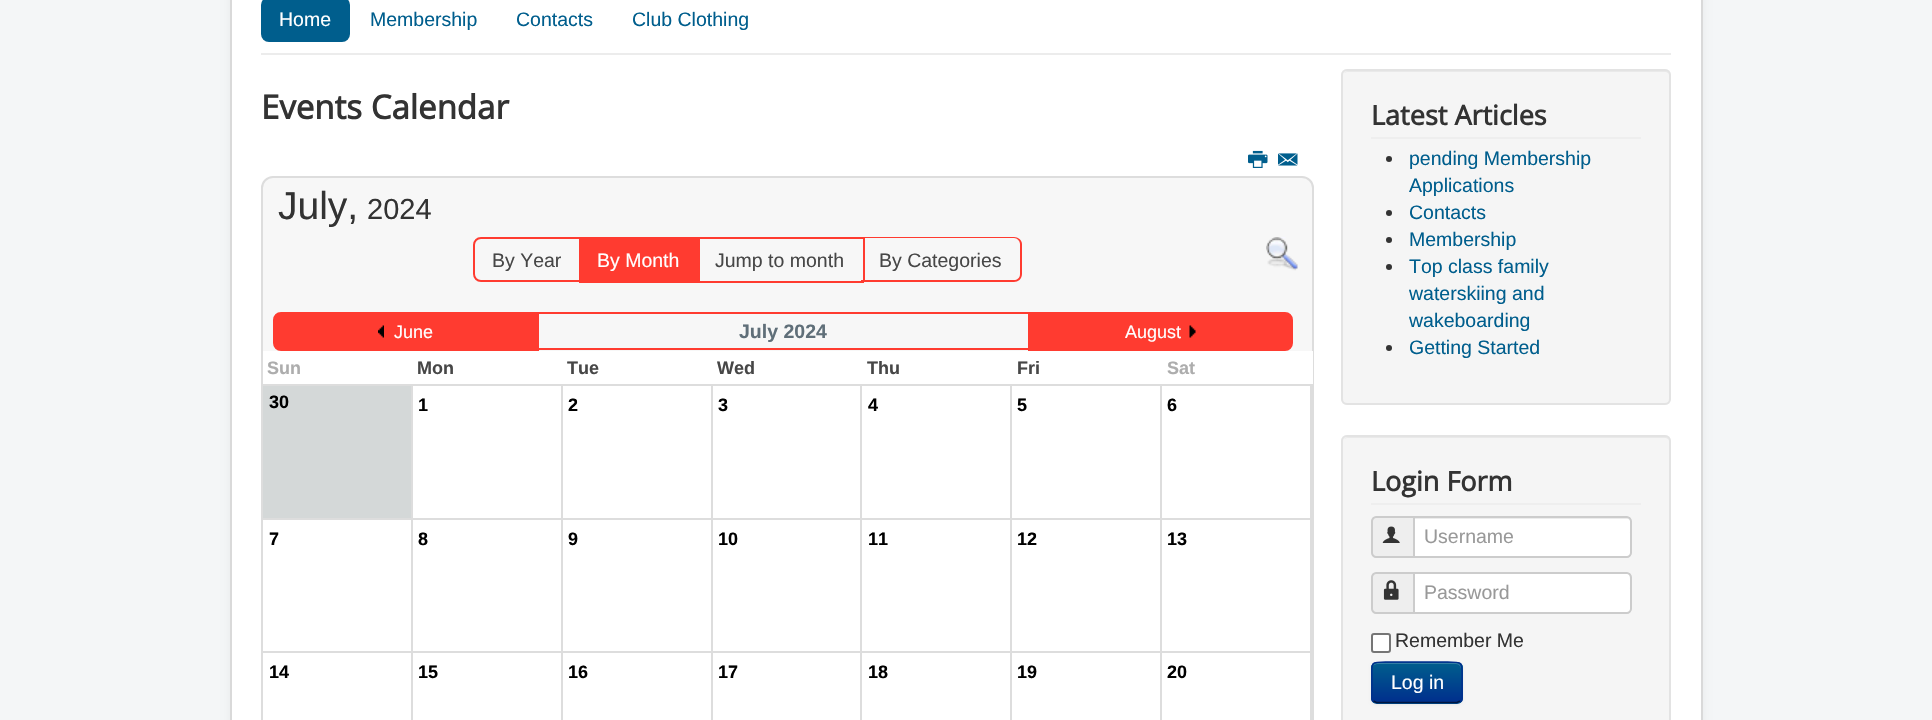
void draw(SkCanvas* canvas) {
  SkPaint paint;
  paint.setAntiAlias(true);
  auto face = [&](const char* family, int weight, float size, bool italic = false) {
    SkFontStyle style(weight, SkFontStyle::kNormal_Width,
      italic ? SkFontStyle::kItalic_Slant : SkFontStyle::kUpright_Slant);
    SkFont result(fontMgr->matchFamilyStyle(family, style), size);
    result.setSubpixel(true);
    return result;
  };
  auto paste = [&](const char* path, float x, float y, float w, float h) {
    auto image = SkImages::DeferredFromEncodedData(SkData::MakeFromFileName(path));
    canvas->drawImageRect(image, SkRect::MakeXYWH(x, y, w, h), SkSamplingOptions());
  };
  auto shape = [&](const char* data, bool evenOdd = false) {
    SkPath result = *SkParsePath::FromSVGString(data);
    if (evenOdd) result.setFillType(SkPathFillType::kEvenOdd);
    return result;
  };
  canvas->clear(0xfff4f6f7);
  paint.setColor(0x0d000000);
  paint.setMaskFilter(SkMaskFilter::MakeBlur(kNormal_SkBlurStyle, 4.5f));
  canvas->drawRoundRect(SkRect::MakeXYWH(230, -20, 1473, 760), 6, 6, paint);
  paint.setMaskFilter(nullptr);
  paint.setColor(0xffffffff);
  canvas->drawRect(SkRect::MakeXYWH(231, -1, 1471, 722), paint);
  paint.setStroke(true);
  paint.setStrokeWidth(2);
  paint.setColor(0xffd9d9d9);
  canvas->drawRect(SkRect::MakeXYWH(231, -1, 1471, 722), paint);
  paint.setStroke(false);
  paint.setColor(0xffececec);
  canvas->drawRect(SkRect::MakeXYWH(261, 53, 1410, 2), paint);
  paint.setColor(0xff005e8d);
  canvas->drawRoundRect(SkRect::MakeXYWH(261, -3, 89, 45), 8, 8, paint);
  paste("img/1.png", 1248, 150, 20, 18);
  paste("img/2.png", 1278, 153, 20, 13);
  paint.setColor(0xfff7f7f7);
  canvas->drawRoundRect(SkRect::MakeXYWH(262, 177, 1051, 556), 11, 11, paint);
  paint.setStroke(true);
  paint.setColor(0xffdddddd);
  canvas->drawRoundRect(SkRect::MakeXYWH(262, 177, 1051, 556), 11, 11, paint);
  paint.setColor(0xffff3b30);
  canvas->drawPath(shape("M481 238H580V281H481C477 281 474 278 474 274V245C474 241 477 238 481 238Z"), paint);
  paint.setStroke(false);
  {
    const struct { float x, y, w, h; SkColor color; } items[] = {
      {581, 237, 119, 45, 0xffff3b30},
      {579, 282, 120, 1, 0xffff3b30},
      {698, 237, 166, 2, 0xffff3b30},
      {863, 237, 2, 45, 0xffff3b30},
      {698, 281, 166, 2, 0xffff3b30},
    };
    for (auto [x, y, w, h, color] : items) {
      paint.setColor(color);
      canvas->drawRect(SkRect::MakeXYWH(x, y, w, h), paint);
    }
  }
  canvas->drawPath(shape("M861 237H1014C1018 237 1022 240 1022 244V274C1022 279 1018 282 1014 282H861ZM861 238H1014C1017 238 1020 241 1020 244V274C1020 278 1017 280 1014 280H861Z", true), paint);
  paste("img/3.png", 1266, 237, 32, 34);
  canvas->drawPath(shape("M281 313H538V350H281C277 350 274 347 274 343V320C274 316 277 313 281 313Z"), paint);
  paint.setStroke(true);
  canvas->drawPath(shape("M281 313H538V350H281C277 350 274 347 274 343V320C274 316 277 313 281 313Z"), paint);
  paste("img/4.png", 378, 325, 6, 13);
  paint.setStroke(false);
  canvas->drawRect(SkRect::MakeXYWH(539, 312, 489, 2), paint);
  canvas->drawRect(SkRect::MakeXYWH(539, 348, 489, 2), paint);
  canvas->drawPath(shape("M1029 313H1285C1289 313 1292 316 1292 320V343C1292 347 1289 350 1285 350H1029Z"), paint);
  paint.setStroke(true);
  canvas->drawPath(shape("M1029 313H1285C1289 313 1292 316 1292 320V343C1292 347 1289 350 1285 350H1029Z"), paint);
  paste("img/5.png", 1189, 325, 7, 13);
  paint.setStroke(false);
  {
    const struct { float x, y, w, h; SkColor color; } items[] = {
      {263, 351, 1050, 33, 0xffffffff},
      {261, 384, 1050, 2, 0xffdddddd},
      {1310, 384, 2, 336, 0xffdddddd},
      {263, 386, 148, 132, 0xffd4d8d8},
      {413, 386, 148, 132, 0xffffffff},
      {1160, 518, 151, 2, 0xffdddddd},
      {1160, 651, 151, 2, 0xffdddddd},
      {1160, 651, 2, 69, 0xffdddddd},
      {1010, 651, 151, 2, 0xffdddddd},
      {1160, 518, 2, 135, 0xffdddddd},
      {1010, 518, 151, 2, 0xffdddddd},
      {1010, 651, 2, 69, 0xffdddddd},
      {860, 651, 151, 2, 0xffdddddd},
      {1010, 518, 2, 135, 0xffdddddd},
      {860, 518, 151, 2, 0xffdddddd},
      {860, 651, 2, 69, 0xffdddddd},
      {711, 651, 150, 2, 0xffdddddd},
      {860, 518, 2, 135, 0xffdddddd},
      {711, 518, 150, 2, 0xffdddddd},
      {711, 651, 2, 69, 0xffdddddd},
      {561, 651, 152, 2, 0xffdddddd},
      {711, 518, 2, 135, 0xffdddddd},
      {561, 518, 152, 2, 0xffdddddd},
      {561, 651, 2, 69, 0xffdddddd},
      {411, 651, 152, 2, 0xffdddddd},
      {561, 518, 2, 135, 0xffdddddd},
      {411, 518, 152, 2, 0xffdddddd},
      {411, 651, 2, 69, 0xffdddddd},
      {261, 651, 152, 2, 0xffdddddd},
      {411, 518, 2, 135, 0xffdddddd},
      {261, 518, 152, 2, 0xffdddddd},
      {411, 384, 2, 135, 0xffdddddd},
      {563, 386, 148, 132, 0xffffffff},
      {561, 384, 2, 135, 0xffdddddd},
      {713, 386, 147, 132, 0xffffffff},
      {711, 384, 2, 135, 0xffdddddd},
      {862, 386, 148, 132, 0xffffffff},
      {860, 384, 2, 135, 0xffdddddd},
      {1012, 386, 148, 132, 0xffffffff},
      {1010, 384, 2, 135, 0xffdddddd},
      {1162, 386, 148, 132, 0xffffffff},
      {1160, 384, 2, 135, 0xffdddddd},
      {263, 520, 148, 131, 0xffffffff},
      {413, 520, 148, 131, 0xffffffff},
      {563, 520, 148, 131, 0xffffffff},
      {713, 520, 147, 131, 0xffffffff},
      {862, 520, 148, 131, 0xffffffff},
      {1012, 520, 148, 131, 0xffffffff},
      {1162, 520, 148, 131, 0xffffffff},
      {263, 653, 148, 67, 0xffffffff},
      {413, 653, 148, 67, 0xffffffff},
      {563, 653, 148, 67, 0xffffffff},
      {713, 653, 147, 67, 0xffffffff},
      {862, 653, 148, 67, 0xffffffff},
      {1012, 653, 148, 67, 0xffffffff},
      {1162, 653, 148, 67, 0xffffffff},
    };
    for (auto [x, y, w, h, color] : items) {
      paint.setColor(color);
      canvas->drawRect(SkRect::MakeXYWH(x, y, w, h), paint);
    }
  }
  paint.setColor(0xfff5f5f5);
  canvas->drawRoundRect(SkRect::MakeXYWH(1341, 69, 330, 336), 6, 6, paint);
  paint.setColor(0xffe9e9e9);
  canvas->drawPath(shape("M1347 72H1665C1667 72 1670 74 1670 76C1670 73 1668 71 1665 71H1348C1346 71 1345 72 1344 73Z"), paint);
  paint.setStroke(true);
  paint.setColor(0xffe3e3e3);
  canvas->drawRoundRect(SkRect::MakeXYWH(1342, 70, 328, 334), 5, 5, paint);
  paint.setStroke(false);
  paint.setColor(0xffeeeeee);
  canvas->drawRect(SkRect::MakeXYWH(1371, 137, 270, 2), paint);
  paint.setColor(0xff333333);
  canvas->drawCircle(1389, 159, 3, paint);
  canvas->drawCircle(1389, 213, 3, paint);
  canvas->drawCircle(1389, 240, 3, paint);
  canvas->drawCircle(1389, 267, 3, paint);
  canvas->drawCircle(1389, 348, 3, paint);
  paint.setColor(0xfff5f5f5);
  canvas->drawRoundRect(SkRect::MakeXYWH(1341, 435, 330, 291), 6, 6, paint);
  paint.setColor(0xffe9e9e9);
  canvas->drawPath(shape("M1347 438H1665C1667 438 1670 440 1670 442C1670 439 1668 437 1665 437H1348C1346 437 1345 438 1344 439Z"), paint);
  paint.setStroke(true);
  paint.setColor(0xffe3e3e3);
  canvas->drawRoundRect(SkRect::MakeXYWH(1342, 436, 328, 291), 5, 5, paint);
  paint.setStroke(false);
  paint.setColor(0xffeeeeee);
  canvas->drawRect(SkRect::MakeXYWH(1371, 503, 270, 2), paint);
  canvas->drawPath(shape("M1376 517H1414V557H1376C1374 557 1372 555 1372 553V521C1372 519 1374 517 1376 517Z"), paint);
  paint.setStroke(true);
  paint.setColor(0xffcccccc);
  canvas->drawPath(shape("M1376 517H1414V557H1376C1374 557 1372 555 1372 553V521C1372 519 1374 517 1376 517Z"), paint);
  paste("img/6.png", 1382, 526, 18, 17);
  paint.setStroke(false);
  paint.setColor(0xffffffff);
  canvas->drawPath(shape("M1413 516H1627C1630 516 1632 518 1632 521V553C1632 556 1630 558 1627 558H1413Z"), paint);
  paint.setColor(0xffececec);
  canvas->drawPath(shape("M1415 518V519H1628C1632 519 1630 532 1630 533V556C1631 556 1631 555 1631 554V521C1631 519 1630 518 1628 518Z"), paint);
  paint.setStroke(true);
  paint.setColor(0xffcccccc);
  canvas->drawPath(shape("M1414 517H1627C1629 517 1631 519 1631 521V553C1631 555 1629 557 1627 557H1414Z"), paint);
  paint.setStroke(false);
  paint.setColor(0xffeeeeee);
  canvas->drawPath(shape("M1376 573H1414V613H1376C1374 613 1372 611 1372 609V577C1372 575 1374 573 1376 573Z"), paint);
  paint.setStroke(true);
  paint.setColor(0xffcccccc);
  canvas->drawPath(shape("M1376 573H1414V613H1376C1374 613 1372 611 1372 609V577C1372 575 1374 573 1376 573Z"), paint);
  paste("img/7.png", 1383, 580, 16, 20);
  paint.setStroke(false);
  paint.setColor(0xffffffff);
  canvas->drawPath(shape("M1413 572H1627C1630 572 1632 574 1632 577V609C1632 612 1630 614 1627 614H1413Z"), paint);
  paint.setColor(0xffececec);
  canvas->drawPath(shape("M1415 573V574H1628C1631 574 1630 588 1630 589V611C1631 611 1631 610 1631 609V576C1631 574 1630 573 1628 573Z"), paint);
  paint.setStroke(true);
  paint.setColor(0xffcccccc);
  canvas->drawPath(shape("M1414 573H1627C1629 573 1631 575 1631 577V609C1631 611 1629 613 1627 613H1414Z"), paint);
  paint.setStroke(false);
  paint.setColor(0xffffffff);
  canvas->drawRoundRect(SkRect::MakeXYWH(1372, 634, 18, 18), 2, 2, paint);
  paint.setStroke(true);
  paint.setColor(0xff767676);
  canvas->drawRoundRect(SkRect::MakeXYWH(1372, 634, 18, 18), 2, 2, paint);
  paint.setStroke(false);
  paint.setColor(0x0d000000);
  paint.setMaskFilter(SkMaskFilter::MakeBlur(kNormal_SkBlurStyle, 1.5f));
  canvas->drawRoundRect(SkRect::MakeXYWH(1371, 663, 92, 42), 6, 6, paint);
  paint.setMaskFilter(nullptr);
  paint.setColor(0xff004b8d);
  canvas->drawRoundRect(SkRect::MakeXYWH(1371, 662, 92, 42), 6, 6, paint);
  canvas->save();
  canvas->clipPath(shape("M1377 662H1457C1460.5 662 1463 664.5 1463 668V698C1463 701.5 1460.5 704 1457 704H1377C1373.5 704 1371 701.5 1371 698V668C1371 664.5 1373.5 662 1377 662Z"), true);
  {
    const SkColor colors[] = {0xff005e8d, 0xff002f8d};
    const float stops[] = {0, 1};
    const SkPoint ends[] = {{1417, 663}, {1417, 702}};
    paint.setShader(SkGradientShader::MakeLinear(ends, colors, stops, 2, SkTileMode::kClamp));
    paint.setAlpha(255);
  }
  canvas->drawRect(SkRect::MakeXYWH(1371, 663, 92, 39), paint);
  canvas->restore();
  paint.setShader(nullptr);
  paint.setColor(0x33ffffff);
  canvas->drawPath(shape("M1377 664H1456C1459 664 1461 667 1461 669V668C1461 665 1459 663 1456 663H1378C1376 663 1374 664 1373 666C1374 665 1376 664 1377 664Z"), paint);
  paint.setStroke(true);
  paint.setStrokeWidth(1.5f);
  paint.setColor(0xff001641);
  canvas->drawPath(shape("M1460 701L1457 702.5H1376.5L1373.5 701"), paint);
  paint.setColor(0xff002f8d);
  canvas->drawPath(shape("M1373.5 701C1371 699 1372 695.5 1372 692.5V682.5C1372 660.5 1368.5 662 1390 662H1443C1465 662 1462 660.5 1462 682.5V692.5C1462 695.5 1462.5 699 1460 701"), paint);
  auto f0 = face("Liberation Sans", 400, 19.5f);
  paint.setStroke(false);
  paint.setColor(0xffffffff);
  canvas->drawString("Home", 279, 26, f0, paint);
  paint.setColor(0xff005e8d);
  {
    const struct { const char* s; float x, y; } items[] = {
      {"Membership", 370, 26},
      {"Contacts", 516, 26},
      {"Club Clothing", 632, 26},
    };
    for (auto [s, x, y] : items) {
      canvas->drawString(s, x, y, f0, paint);
    }
  }
  auto f1 = face("Open Sans", 700, 33);
  paint.setColor(0xff333333);
  canvas->drawString("Events Calendar", 261, 119, f1, paint);
  auto f2 = face("Liberation Sans", 400, 39);
  canvas->drawString("July,", 278, 219, f2, paint);
  auto f3 = face("Liberation Sans", 400, 29);
  canvas->drawString("2024", 367, 219, f3, paint);
  paint.setColor(0xff474747);
  canvas->drawString("By Year", 492, 267, f0, paint);
  paint.setColor(0xffffffff);
  canvas->drawString("By Month", 597, 267, f0, paint);
  paint.setColor(0xff474747);
  canvas->drawString("Jump to month", 715, 267, f0, paint);
  canvas->drawString("By Categories", 879, 267, f0, paint);
  auto f4 = face("Liberation Sans", 400, 18);
  paint.setColor(0xffffffff);
  canvas->drawString("June", 394, 338, f4, paint);
  auto f5 = face("Liberation Sans", 700, 19.5f);
  paint.setColor(0xff606f79);
  canvas->drawString("July 2024", 739, 338, f5, paint);
  paint.setColor(0xffffffff);
  canvas->drawString("August", 1125, 338, f4, paint);
  auto f6 = face("Liberation Sans", 700, 18);
  paint.setColor(0xffadadad);
  canvas->drawString("Sun", 267, 374, f6, paint);
  paint.setColor(0xff474747);
  {
    const struct { const char* s; float x, y; } items[] = {
      {"Mon", 417, 374},
      {"Tue", 567, 374},
      {"Wed", 717, 374},
      {"Thu", 867, 374},
      {"Fri", 1017, 374},
    };
    for (auto [s, x, y] : items) {
      canvas->drawString(s, x, y, f6, paint);
    }
  }
  paint.setColor(0xffadadad);
  canvas->drawString("Sat", 1167, 374, f6, paint);
  paint.setColor(0xff000000);
  {
    const struct { const char* s; float x, y; } items[] = {
      {"30", 269, 408},
      {"1", 418, 411},
      {"2", 568, 411},
      {"3", 718, 411},
      {"4", 868, 411},
      {"5", 1017, 411},
      {"6", 1167, 411},
      {"7", 269, 545},
      {"8", 418, 545},
      {"9", 568, 545},
      {"10", 718, 545},
      {"11", 868, 545},
      {"12", 1017, 545},
      {"13", 1167, 545},
      {"14", 269, 678},
      {"15", 418, 678},
      {"16", 568, 678},
      {"17", 718, 678},
      {"18", 868, 678},
      {"19", 1017, 678},
      {"20", 1167, 678},
    };
    for (auto [s, x, y] : items) {
      canvas->drawString(s, x, y, f6, paint);
    }
  }
  auto f7 = face("Open Sans", 700, 27);
  paint.setColor(0xff333333);
  canvas->drawString("Latest Articles", 1371, 125, f7, paint);
  paint.setColor(0xff005e8d);
  {
    const struct { const char* s; float x, y; } items[] = {
      {"pending Membership", 1409, 165},
      {"Applications", 1409, 192},
      {"Contacts", 1409, 219},
      {"Membership", 1409, 246},
      {"Top class family", 1409, 273},
      {"waterskiing and", 1409, 300},
      {"wakeboarding", 1409, 327},
      {"Getting Started", 1409, 354},
    };
    for (auto [s, x, y] : items) {
      canvas->drawString(s, x, y, f0, paint);
    }
  }
  paint.setColor(0xff333333);
  canvas->drawString("Login Form", 1371, 491, f7, paint);
  paint.setColor(0xff999999);
  canvas->drawString("Username", 1424, 543, f0, paint);
  canvas->drawString("Password", 1424, 599, f0, paint);
  paint.setColor(0xff333333);
  canvas->drawString("Remember Me", 1395, 647, f0, paint);
  paint.setColor(0xffffffff);
  canvas->drawString("Log in", 1391, 689, f0, paint);
}
